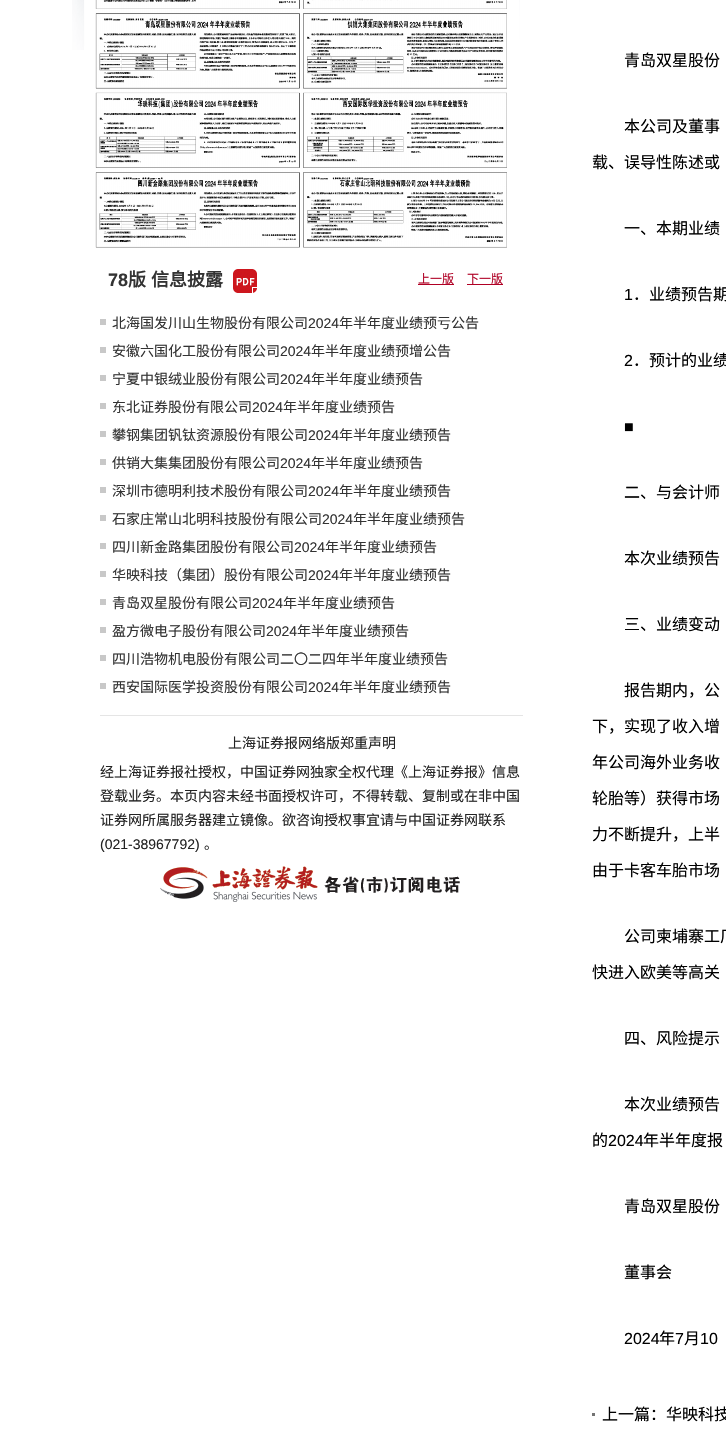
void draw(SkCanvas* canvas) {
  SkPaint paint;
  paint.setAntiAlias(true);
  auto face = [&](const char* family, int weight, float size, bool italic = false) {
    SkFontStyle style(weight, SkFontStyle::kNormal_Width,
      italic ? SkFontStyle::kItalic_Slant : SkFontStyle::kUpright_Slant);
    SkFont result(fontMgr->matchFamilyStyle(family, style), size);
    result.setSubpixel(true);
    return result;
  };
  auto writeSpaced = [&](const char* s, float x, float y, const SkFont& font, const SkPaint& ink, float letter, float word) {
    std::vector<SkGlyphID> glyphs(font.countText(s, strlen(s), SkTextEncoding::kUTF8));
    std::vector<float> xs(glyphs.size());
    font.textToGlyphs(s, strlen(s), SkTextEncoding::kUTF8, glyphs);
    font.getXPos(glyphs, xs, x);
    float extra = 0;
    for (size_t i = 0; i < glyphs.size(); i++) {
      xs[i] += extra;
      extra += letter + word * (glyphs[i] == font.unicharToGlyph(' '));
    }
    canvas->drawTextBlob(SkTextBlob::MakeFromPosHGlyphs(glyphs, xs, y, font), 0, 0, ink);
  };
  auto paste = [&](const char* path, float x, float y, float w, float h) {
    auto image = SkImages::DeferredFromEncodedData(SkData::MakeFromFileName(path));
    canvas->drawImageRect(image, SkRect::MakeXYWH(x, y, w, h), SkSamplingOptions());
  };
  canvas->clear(0xffffffff);
  paste("img/1.png", 72, 0, 448, 50);
  paste("img/2.png", 95, 0, 412, 248);
  paste("img/3.png", 233, 269, 24, 24);
  {
    const struct { float x, y, w, h; SkColor color; } items[] = {
      {418, 284, 36, 1, 0xffb00024},
      {467, 284, 36, 1, 0xffb00024},
      {100, 319, 6, 6, 0xffc8c8c8},
      {100, 347, 6, 6, 0xffc8c8c8},
      {100, 375, 6, 6, 0xffc8c8c8},
      {100, 403, 6, 6, 0xffc8c8c8},
      {100, 431, 6, 6, 0xffc8c8c8},
      {100, 459, 6, 6, 0xffc8c8c8},
      {100, 487, 6, 6, 0xffc8c8c8},
      {100, 515, 6, 6, 0xffc8c8c8},
      {100, 543, 6, 6, 0xffc8c8c8},
      {100, 571, 6, 6, 0xffc8c8c8},
      {100, 599, 6, 6, 0xffc8c8c8},
      {100, 627, 6, 6, 0xffc8c8c8},
      {100, 655, 6, 6, 0xffc8c8c8},
      {100, 683, 6, 6, 0xffc8c8c8},
      {100, 715, 423, 1, 0xffe5e5e5},
    };
    for (auto [x, y, w, h, color] : items) {
      paint.setColor(color);
      canvas->drawRect(SkRect::MakeXYWH(x, y, w, h), paint);
    }
  }
  paste("img/4.png", 160, 866, 300, 36);
  paint.setColor(0xff737373);
  canvas->drawRect(SkRect::MakeXYWH(592, 1413, 3, 3), paint);
  auto f0 = face("Liberation Sans", 700, 18);
  paint.setColor(0xff333333);
  canvas->drawString("78", 108, 286, f0, paint);
  auto f1 = face("Noto Sans CJK SC", 700, 18);
  writeSpaced("版 信息披露", 128, 286, f1, paint, 0, 1);
  auto f2 = face("Noto Sans CJK SC", 400, 12);
  paint.setColor(0xffb00024);
  canvas->drawString("上一版", 418, 283, f2, paint);
  canvas->drawString("下一版", 467, 283, f2, paint);
  auto f3 = face("Noto Sans CJK SC", 400, 14);
  paint.setColor(0xff333333);
  canvas->drawString("北海国发川山生物股份有限公司", 112, 328, f3, paint);
  auto f4 = face("Liberation Sans", 400, 14);
  canvas->drawString("2024", 308, 328, f4, paint);
  canvas->drawString("年半年度业绩预亏公告", 339, 328, f3, paint);
  canvas->drawString("安徽六国化工股份有限公司", 112, 356, f3, paint);
  canvas->drawString("2024", 280, 356, f4, paint);
  canvas->drawString("年半年度业绩预增公告", 311, 356, f3, paint);
  canvas->drawString("宁夏中银绒业股份有限公司", 112, 384, f3, paint);
  canvas->drawString("2024", 280, 384, f4, paint);
  canvas->drawString("年半年度业绩预告", 311, 384, f3, paint);
  canvas->drawString("东北证券股份有限公司", 112, 412, f3, paint);
  canvas->drawString("2024", 252, 412, f4, paint);
  canvas->drawString("年半年度业绩预告", 283, 412, f3, paint);
  canvas->drawString("攀钢集团钒钛资源股份有限公司", 112, 440, f3, paint);
  canvas->drawString("2024", 308, 440, f4, paint);
  canvas->drawString("年半年度业绩预告", 339, 440, f3, paint);
  canvas->drawString("供销大集集团股份有限公司", 112, 468, f3, paint);
  canvas->drawString("2024", 280, 468, f4, paint);
  canvas->drawString("年半年度业绩预告", 311, 468, f3, paint);
  canvas->drawString("深圳市德明利技术股份有限公司", 112, 496, f3, paint);
  canvas->drawString("2024", 308, 496, f4, paint);
  canvas->drawString("年半年度业绩预告", 339, 496, f3, paint);
  canvas->drawString("石家庄常山北明科技股份有限公司", 112, 524, f3, paint);
  canvas->drawString("2024", 322, 524, f4, paint);
  canvas->drawString("年半年度业绩预告", 353, 524, f3, paint);
  canvas->drawString("四川新金路集团股份有限公司", 112, 552, f3, paint);
  canvas->drawString("2024", 294, 552, f4, paint);
  canvas->drawString("年半年度业绩预告", 325, 552, f3, paint);
  canvas->drawString("华映科技（集团）股份有限公司", 112, 580, f3, paint);
  canvas->drawString("2024", 308, 580, f4, paint);
  canvas->drawString("年半年度业绩预告", 339, 580, f3, paint);
  canvas->drawString("青岛双星股份有限公司", 112, 608, f3, paint);
  canvas->drawString("2024", 252, 608, f4, paint);
  canvas->drawString("年半年度业绩预告", 283, 608, f3, paint);
  canvas->drawString("盈方微电子股份有限公司", 112, 636, f3, paint);
  canvas->drawString("2024", 266, 636, f4, paint);
  {
    const struct { const char* s; float x, y; } items[] = {
      {"年半年度业绩预告", 297, 636},
      {"四川浩物机电股份有限公司二〇二四年半年度业绩预告", 112, 664},
      {"西安国际医学投资股份有限公司", 112, 692},
    };
    for (auto [s, x, y] : items) {
      canvas->drawString(s, x, y, f3, paint);
    }
  }
  canvas->drawString("2024", 308, 692, f4, paint);
  canvas->drawString("年半年度业绩预告", 339, 692, f3, paint);
  paint.setColor(0xff232323);
  {
    const struct { const char* s; float x, y; } items[] = {
      {"上海证券报网络版郑重声明", 228, 748},
      {"经上海证券报社授权，中国证券网独家全权代理《上海证券报》信息", 100, 777},
      {"登载业务。本页内容未经书面授权许可，不得转载、复制或在非中国", 100, 801},
      {"证券网所属服务器建立镜像。欲咨询授权事宜请与中国证券网联系", 100, 825},
    };
    for (auto [s, x, y] : items) {
      canvas->drawString(s, x, y, f3, paint);
    }
  }
  canvas->drawString("(021-38967792)", 100, 849, f4, paint);
  canvas->drawString("。", 204, 849, f3, paint);
  auto f5 = face("Noto Sans CJK SC", 400, 16);
  paint.setColor(0xff000000);
  {
    const struct { const char* s; float x, y; } items[] = {
      {"青岛双星股份", 624, 66},
      {"本公司及董事", 624, 132},
      {"载、误导性陈述或", 592, 168},
      {"一、本期业绩", 624, 234},
    };
    for (auto [s, x, y] : items) {
      canvas->drawString(s, x, y, f5, paint);
    }
  }
  auto f6 = face("Liberation Sans", 400, 16);
  canvas->drawString("1", 624, 300, f6, paint);
  canvas->drawString("．业绩预告期", 633, 300, f5, paint);
  canvas->drawString("2", 624, 366, f6, paint);
  canvas->drawString("．预计的业绩", 633, 366, f5, paint);
  canvas->drawString("■", 624, 432, f6, paint);
  {
    const struct { const char* s; float x, y; } items[] = {
      {"二、与会计师", 624, 498},
      {"本次业绩预告", 624, 564},
      {"三、业绩变动", 624, 630},
      {"报告期内，公", 624, 696},
      {"下，实现了收入增", 592, 732},
      {"年公司海外业务收", 592, 768},
      {"轮胎等）获得市场", 592, 804},
      {"力不断提升，上半", 592, 840},
      {"由于卡客车胎市场", 592, 876},
      {"公司柬埔寨工厂", 624, 942},
      {"快进入欧美等高关", 592, 978},
      {"四、风险提示", 624, 1044},
      {"本次业绩预告", 624, 1110},
      {"的", 592, 1146},
    };
    for (auto [s, x, y] : items) {
      canvas->drawString(s, x, y, f5, paint);
    }
  }
  canvas->drawString("2024", 608, 1146, f6, paint);
  {
    const struct { const char* s; float x, y; } items[] = {
      {"年半年度报", 643, 1146},
      {"青岛双星股份", 624, 1212},
      {"董事会", 624, 1278},
    };
    for (auto [s, x, y] : items) {
      canvas->drawString(s, x, y, f5, paint);
    }
  }
  canvas->drawString("2024", 624, 1344, f6, paint);
  canvas->drawString("年", 659, 1344, f5, paint);
  canvas->drawString("7", 675, 1344, f6, paint);
  canvas->drawString("月", 684, 1344, f5, paint);
  canvas->drawString("10", 700, 1344, f6, paint);
  canvas->drawString("上一篇：华映科技", 602, 1420, f5, paint);
}
